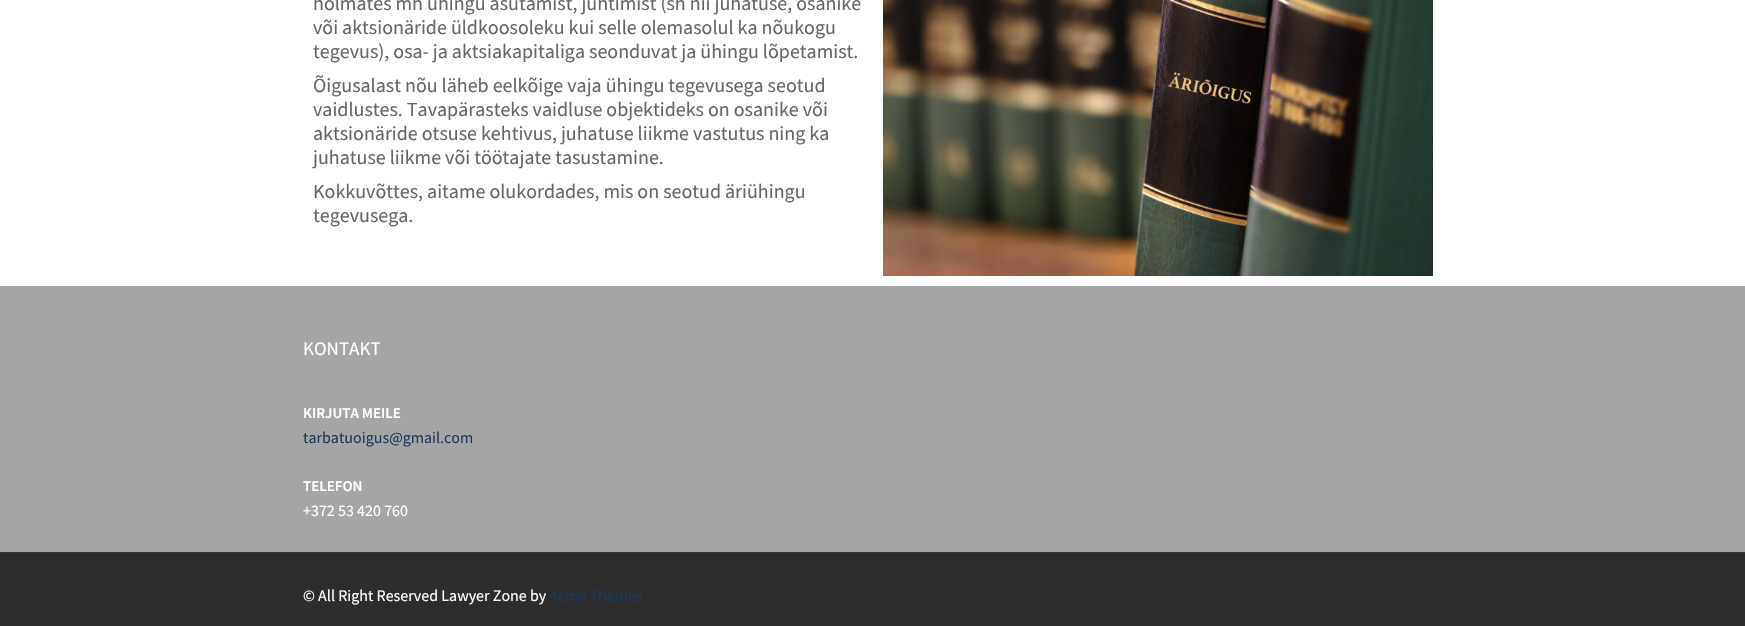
void draw(SkCanvas* canvas) {
  SkPaint paint;
  paint.setAntiAlias(true);
  auto face = [&](const char* family, int weight, float size, bool italic = false) {
    SkFontStyle style(weight, SkFontStyle::kNormal_Width,
      italic ? SkFontStyle::kItalic_Slant : SkFontStyle::kUpright_Slant);
    SkFont result(fontMgr->matchFamilyStyle(family, style), size);
    result.setSubpixel(true);
    return result;
  };
  auto paste = [&](const char* path, float x, float y, float w, float h) {
    auto image = SkImages::DeferredFromEncodedData(SkData::MakeFromFileName(path));
    canvas->drawImageRect(image, SkRect::MakeXYWH(x, y, w, h), SkSamplingOptions());
  };
  canvas->clear(0xffffffff);
  paste("img/1.png", 883, 0, 550, 276);
  {
    const struct { float x, y, w, h; SkColor color; } items[] = {
      {0, 286, 1745, 266, 0xffa5a5a5},
      {0, 553, 1745, 73, 0xff2d2d2d},
      {0, 552, 1745, 1, 0xff353534},
    };
    for (auto [x, y, w, h, color] : items) {
      paint.setColor(color);
      canvas->drawRect(SkRect::MakeXYWH(x, y, w, h), paint);
    }
  }
  auto f0 = face("Source Sans Pro", 400, 20);
  paint.setColor(0xff666666);
  {
    const struct { const char* s; float x, y; } items[] = {
      {"hõlmates mh ühingu asutamist, juhtimist (sh nii juhatuse, osanike", 313, 10},
      {"või aktsionäride üldkoosoleku kui selle olemasolul ka nõukogu", 313, 34},
      {"tegevus), osa- ja aktsiakapitaliga seonduvat ja ühingu lõpetamist.", 313, 58},
      {"Õigusalast nõu läheb eelkõige vaja ühingu tegevusega seotud", 313, 92},
      {"vaidlustes. Tavapärasteks vaidluse objektideks on osanike või", 313, 116},
      {"aktsionäride otsuse kehtivus, juhatuse liikme vastutus ning ka", 313, 140},
      {"juhatuse liikme või töötajate tasustamine.", 313, 164},
      {"Kokkuvõttes, aitame olukordades, mis on seotud äriühingu", 313, 198},
      {"tegevusega.", 313, 222},
    };
    for (auto [s, x, y] : items) {
      canvas->drawString(s, x, y, f0, paint);
    }
  }
  auto f1 = face("Source Sans Pro", 400, 19);
  paint.setColor(0xffffffff);
  canvas->drawString("KONTAKT", 303, 355, f1, paint);
  auto f2 = face("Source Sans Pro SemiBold", 600, 15);
  canvas->drawString("KIRJUTA MEILE", 303, 418, f2, paint);
  auto f3 = face("Source Sans Pro", 400, 16);
  paint.setColor(0xff1f375e);
  canvas->drawString("tarbatuoigus@gmail.com", 303, 443, f3, paint);
  paint.setColor(0xffffffff);
  canvas->drawString("TELEFON", 303, 491, f2, paint);
  canvas->drawString("+372 53 420 760", 303, 516, f3, paint);
  canvas->drawString("© All Right Reserved Lawyer Zone by", 303, 601, f3, paint);
  paint.setColor(0xff1f375e);
  canvas->drawString("Acme Themes", 549, 601, f3, paint);
}
